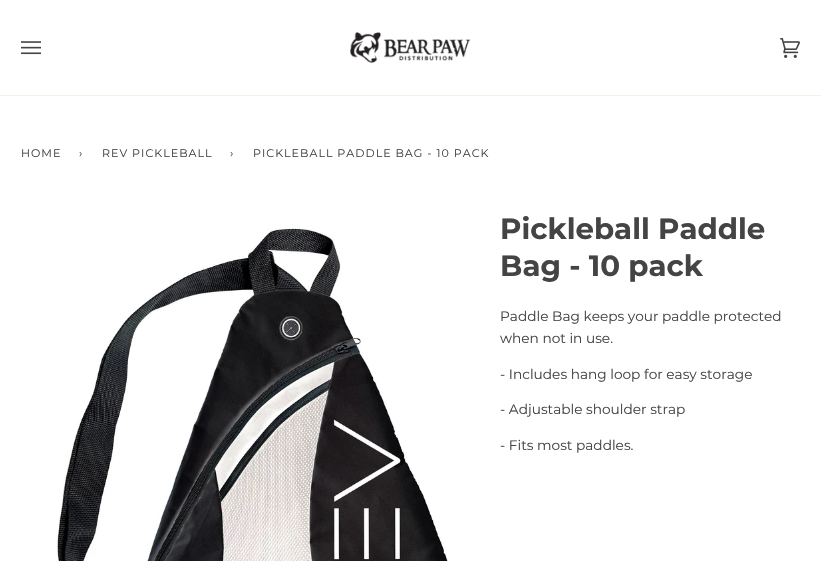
void draw(SkCanvas* canvas) {
  SkPaint paint;
  paint.setAntiAlias(true);
  auto face = [&](const char* family, int weight, float size, bool italic = false) {
    SkFontStyle style(weight, SkFontStyle::kNormal_Width,
      italic ? SkFontStyle::kItalic_Slant : SkFontStyle::kUpright_Slant);
    SkFont result(fontMgr->matchFamilyStyle(family, style), size);
    result.setSubpixel(true);
    return result;
  };
  auto writeSpaced = [&](const char* s, float x, float y, const SkFont& font, const SkPaint& ink, float letter, float word) {
    std::vector<SkGlyphID> glyphs(font.countText(s, strlen(s), SkTextEncoding::kUTF8));
    std::vector<float> xs(glyphs.size());
    font.textToGlyphs(s, strlen(s), SkTextEncoding::kUTF8, glyphs);
    font.getXPos(glyphs, xs, x);
    float extra = 0;
    for (size_t i = 0; i < glyphs.size(); i++) {
      xs[i] += extra;
      extra += letter + word * (glyphs[i] == font.unicharToGlyph(' '));
    }
    canvas->drawTextBlob(SkTextBlob::MakeFromPosHGlyphs(glyphs, xs, y, font), 0, 0, ink);
  };
  auto paste = [&](const char* path, float x, float y, float w, float h) {
    auto image = SkImages::DeferredFromEncodedData(SkData::MakeFromFileName(path));
    canvas->drawImageRect(image, SkRect::MakeXYWH(x, y, w, h), SkSamplingOptions());
  };
  canvas->clear(0xffffffff);
  paint.setColor(0xfff8f0e7);
  canvas->drawRect(SkRect::MakeXYWH(0, 95, 821, 1), paint);
  paste("img/1.png", 21, 41, 20, 14);
  paste("img/2.png", 350, 32, 121, 31);
  paste("img/3.png", 780, 38, 20, 20);
  auto f0 = face("Montserrat", 400, 11.1f);
  paint.setColor(0xff444444);
  {
    const struct { const char* s; float x, y; } items[] = {
      {"HOME", 21, 157},
      {"›", 79, 157},
      {"REV PICKLEBALL", 102, 157},
      {"›", 230, 157},
      {"PICKLEBALL PADDLE BAG - 10 PACK", 253, 157},
    };
    for (auto [s, x, y] : items) {
      writeSpaced(s, x, y, f0, paint, 1, 0);
    }
  }
  auto f1 = face("Montserrat", 700, 29.25f);
  canvas->drawString("Pickleball Paddle", 500, 239, f1, paint);
  canvas->drawString("Bag - 10 pack", 500, 276, f1, paint);
  auto f2 = face("Montserrat", 400, 13.7f);
  canvas->drawString("Paddle Bag keeps your paddle protected", 500, 321, f2, paint);
  canvas->drawString("when not in use.", 500, 343, f2, paint);
  paste("img/4.png", 56, 228, 444, 333);
  {
    const struct { const char* s; float x, y; } items[] = {
      {"- Includes hang loop for easy storage", 500, 379},
      {"- Adjustable shoulder strap", 500, 414},
      {"- Fits most paddles.", 500, 450},
    };
    for (auto [s, x, y] : items) {
      canvas->drawString(s, x, y, f2, paint);
    }
  }
}
